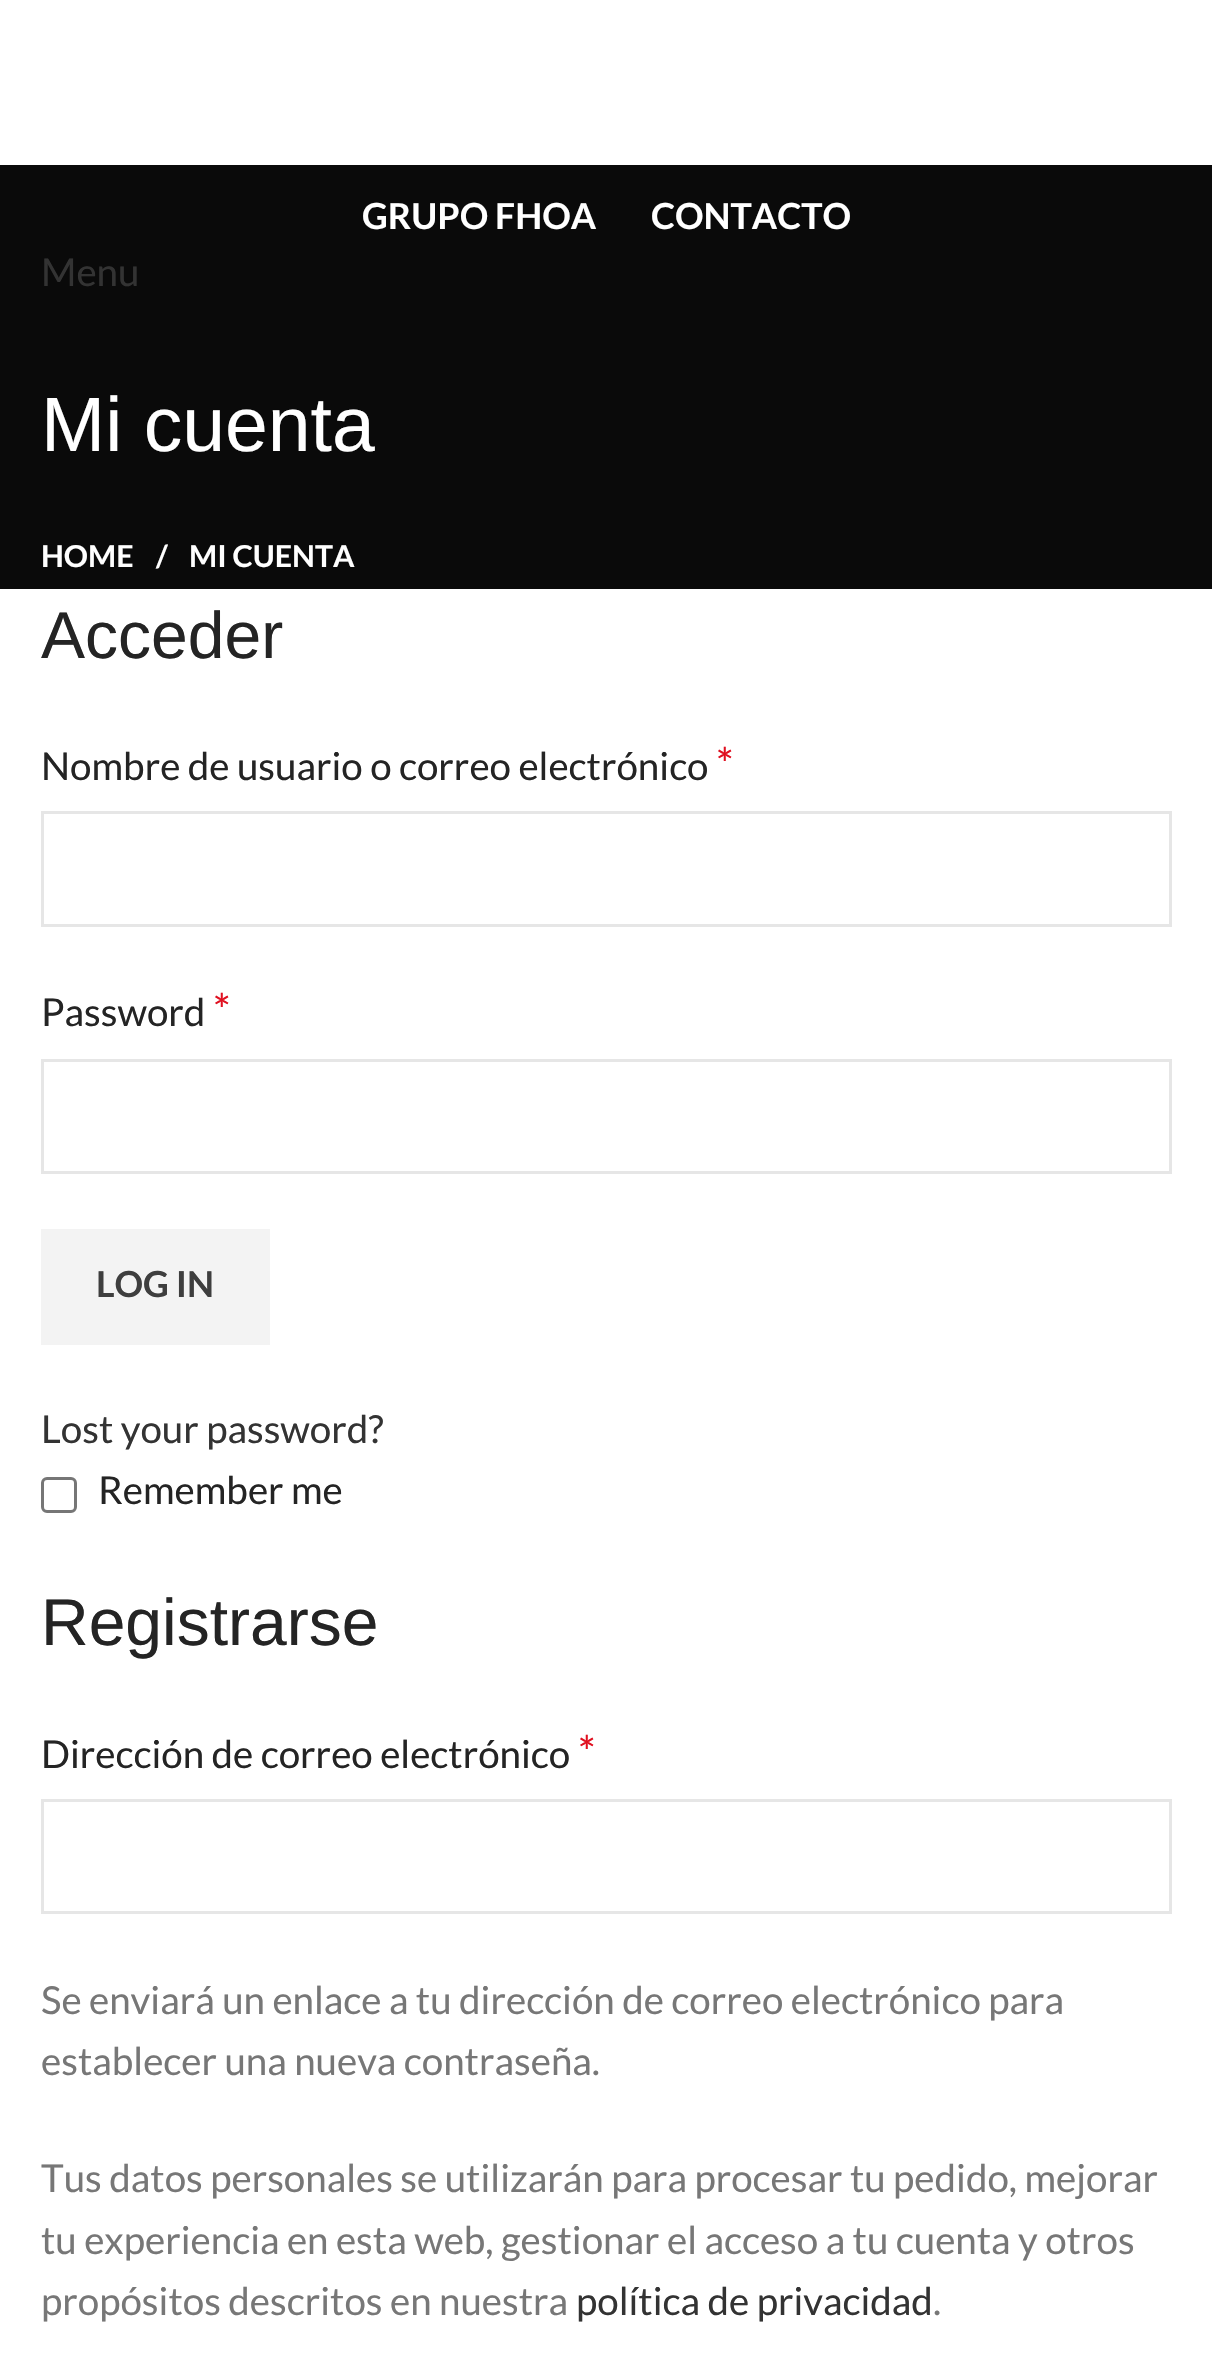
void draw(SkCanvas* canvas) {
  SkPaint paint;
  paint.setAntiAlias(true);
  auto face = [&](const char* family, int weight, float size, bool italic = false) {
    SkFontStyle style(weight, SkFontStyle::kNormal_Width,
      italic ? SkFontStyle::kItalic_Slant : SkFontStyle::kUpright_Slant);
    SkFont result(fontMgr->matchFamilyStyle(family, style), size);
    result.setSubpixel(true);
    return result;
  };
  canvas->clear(0xffffffff);
  paint.setColor(0xff0a0a0a);
  canvas->drawRect(SkRect::MakeXYWH(0, 165, 1212, 424), paint);
  paint.setStroke(true);
  paint.setStrokeWidth(3);
  paint.setColor(0xffe6e6e6);
  canvas->drawRect(SkRect::MakeXYWH(42.5f, 812.5f, 1128, 113), paint);
  canvas->drawRect(SkRect::MakeXYWH(42.5f, 1060.5f, 1128, 112), paint);
  paint.setStroke(false);
  paint.setColor(0xfff3f3f3);
  canvas->drawRect(SkRect::MakeXYWH(41, 1229, 229, 116), paint);
  paint.setStroke(true);
  paint.setColor(0xff767676);
  canvas->drawRoundRect(SkRect::MakeXYWH(42.5f, 1478.5f, 33, 33), 4.5f, 4.5f, paint);
  paint.setColor(0xffe6e6e6);
  canvas->drawRect(SkRect::MakeXYWH(42.5f, 1800.5f, 1128, 112), paint);
  auto f0 = face("Lato", 700, 35.75f);
  paint.setStroke(false);
  paint.setColor(0xffffffff);
  canvas->drawString("GRUPO FHOA", 362, 229, f0, paint);
  canvas->drawString("CONTACTO", 651, 229, f0, paint);
  auto f1 = face("Lato", 400, 38.5f);
  paint.setColor(0xff333333);
  canvas->drawString("Menu", 41, 286, f1, paint);
  auto f2 = face("Liberation Sans", 400, 77);
  paint.setColor(0xffffffff);
  canvas->drawString("Mi cuenta", 41, 451, f2, paint);
  auto f3 = face("Lato", 700, 30.25f);
  {
    const struct { const char* s; float x, y; } items[] = {
      {"HOME", 41, 567},
      {"/", 156, 567},
      {"MI CUENTA", 189, 567},
    };
    for (auto [s, x, y] : items) {
      canvas->drawString(s, x, y, f3, paint);
    }
  }
  auto f4 = face("Liberation Sans", 400, 66);
  paint.setColor(0xff242424);
  canvas->drawString("Acceder", 41, 658, f4, paint);
  canvas->drawString("Nombre de usuario o correo electrónico", 41, 780, f1, paint);
  auto f5 = face("Lato", 400, 44);
  paint.setColor(0xffe01020);
  canvas->drawString("*", 716, 780, f5, paint);
  paint.setColor(0xff242424);
  canvas->drawString("Password", 41, 1026, f1, paint);
  paint.setColor(0xffe01020);
  canvas->drawString("*", 213, 1026, f5, paint);
  paint.setColor(0xff3e3e3e);
  canvas->drawString("LOG IN", 96, 1297, f0, paint);
  paint.setColor(0xff333333);
  canvas->drawString("Lost your password?", 41, 1443, f1, paint);
  paint.setColor(0xff242424);
  canvas->drawString("Remember me", 98, 1504, f1, paint);
  canvas->drawString("Registrarse", 41, 1645, f4, paint);
  canvas->drawString("Dirección de correo electrónico", 41, 1768, f1, paint);
  paint.setColor(0xffe01020);
  canvas->drawString("*", 578, 1768, f5, paint);
  paint.setColor(0xff777777);
  {
    const struct { const char* s; float x, y; } items[] = {
      {"Se enviará un enlace a tu dirección de correo electrónico para", 41, 2014},
      {"establecer una nueva contraseña.", 41, 2075},
      {"Tus datos personales se utilizarán para procesar tu pedido, mejorar", 41, 2192},
      {"tu experiencia en esta web, gestionar el acceso a tu cuenta y otros", 41, 2254},
      {"propósitos descritos en nuestra", 41, 2315},
    };
    for (auto [s, x, y] : items) {
      canvas->drawString(s, x, y, f1, paint);
    }
  }
  paint.setColor(0xff333333);
  canvas->drawString("política de privacidad", 576, 2315, f1, paint);
  paint.setColor(0xff777777);
  canvas->drawString(".", 933, 2315, f1, paint);
}
